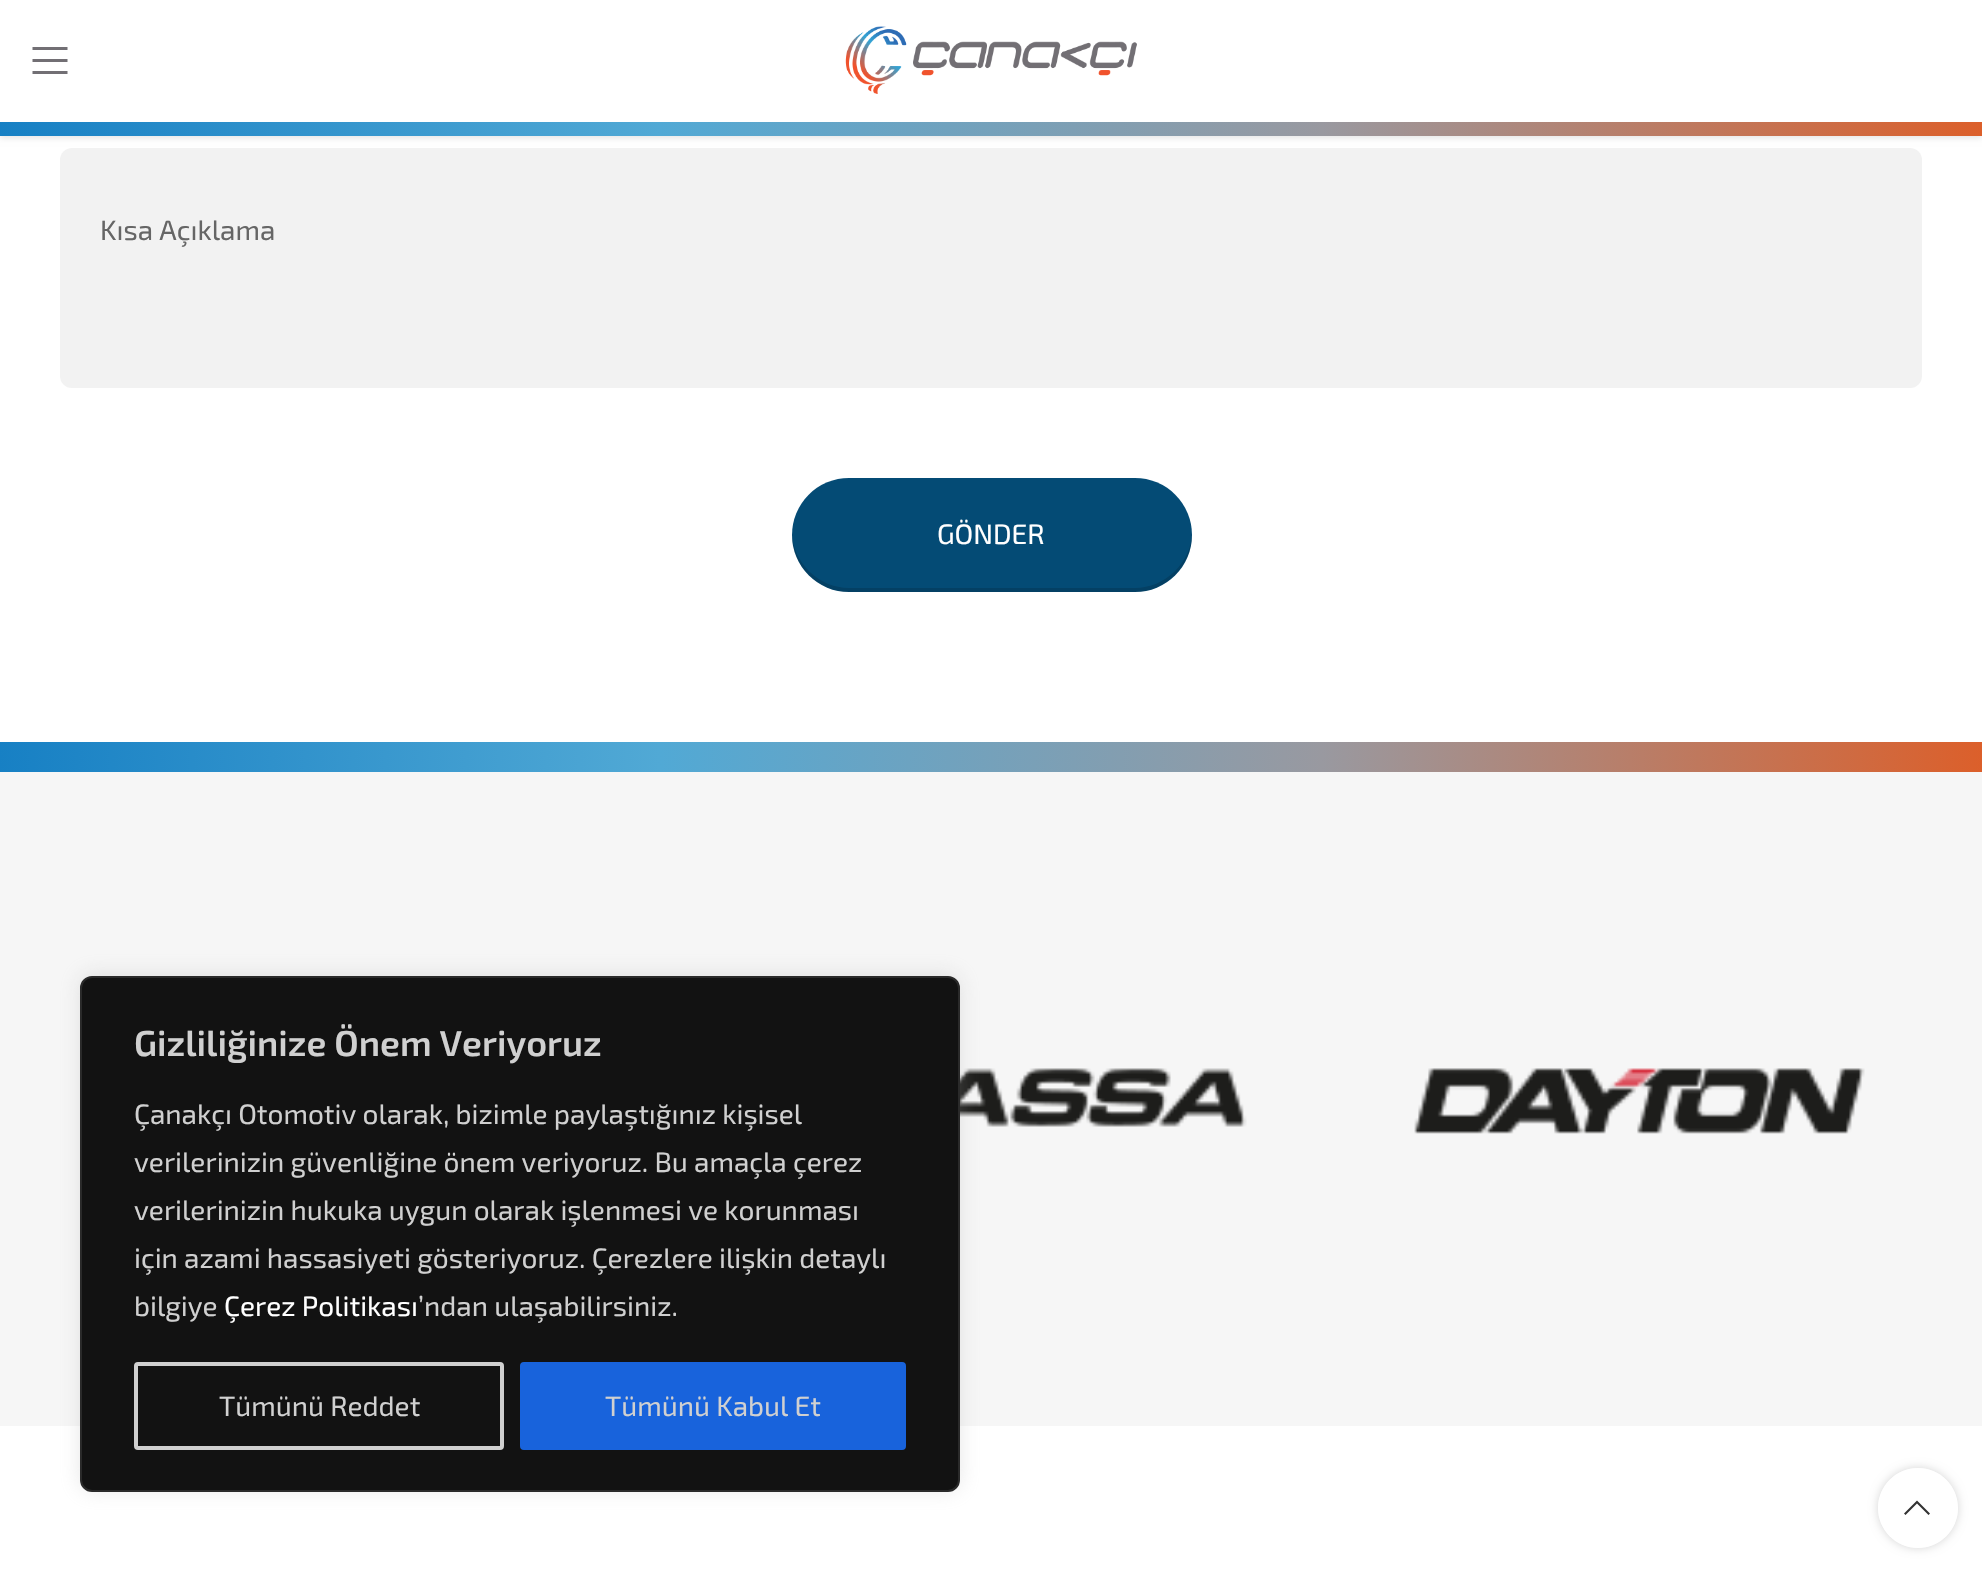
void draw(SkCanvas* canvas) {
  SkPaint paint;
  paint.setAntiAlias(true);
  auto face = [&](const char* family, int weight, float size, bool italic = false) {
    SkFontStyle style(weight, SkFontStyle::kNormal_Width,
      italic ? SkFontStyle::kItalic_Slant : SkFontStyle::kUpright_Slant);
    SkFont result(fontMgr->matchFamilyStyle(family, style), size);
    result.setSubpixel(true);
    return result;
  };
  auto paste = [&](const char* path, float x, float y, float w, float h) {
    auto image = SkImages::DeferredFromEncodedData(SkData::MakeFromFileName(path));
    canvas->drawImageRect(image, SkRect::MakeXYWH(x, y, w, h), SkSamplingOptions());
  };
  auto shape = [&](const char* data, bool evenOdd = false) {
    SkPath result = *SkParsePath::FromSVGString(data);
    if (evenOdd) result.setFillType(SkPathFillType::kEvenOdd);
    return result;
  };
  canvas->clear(0xffffffff);
  paint.setColor(0x1a000000);
  paint.setMaskFilter(SkMaskFilter::MakeBlur(kNormal_SkBlurStyle, 3));
  canvas->drawRect(SkRect::MakeXYWH(0, 2, 1982, 136), paint);
  paint.setMaskFilter(nullptr);
  paste("img/1.png", 0, 122, 1982, 14);
  paint.setColor(0xffffffff);
  canvas->drawRect(SkRect::MakeXYWH(0, 0, 1982, 122), paint);
  paint.setColor(0xff726f74);
  canvas->drawPath(shape("M32.5 50H67.5V47H32.5ZM32.5 62H67.5V59H32.5ZM32.5 74H67.5V71H32.5Z"), paint);
  paste("img/2.png", 845, 26, 292, 68);
  paint.setColor(0xfff2f2f2);
  canvas->drawRoundRect(SkRect::MakeXYWH(60, 148, 1862, 240), 12, 12, paint);
  paint.setColor(0xff044b75);
  canvas->drawRoundRect(SkRect::MakeXYWH(792, 478, 400, 114), 57, 57, paint);
  paint.setColor(0x26000000);
  canvas->drawPath(shape("M792 533V535C792 566 818 592 849 592H1135C1166 592 1192 566 1192 535V533C1191 563 1165 588 1135 588H849C819 588 793 563 792 533Z"), paint);
  paint.setColor(0xfff6f6f6);
  canvas->drawRect(SkRect::MakeXYWH(0, 772, 1982, 654), paint);
  paste("img/3.png", 0, 742, 1982, 30);
  paste("img/4.png", 960, 1068, 287, 59);
  paste("img/5.png", 1414, 1068, 451, 66);
  paint.setColor(0x4dacabab);
  paint.setMaskFilter(SkMaskFilter::MakeBlur(kNormal_SkBlurStyle, 10));
  canvas->drawRoundRect(SkRect::MakeXYWH(80, 974, 880, 516), 12, 12, paint);
  paint.setMaskFilter(nullptr);
  paint.setColor(0xff121212);
  canvas->drawRoundRect(SkRect::MakeXYWH(81, 977, 878, 514), 11, 11, paint);
  paint.setStroke(true);
  paint.setStrokeWidth(2);
  paint.setColor(0xff2a2a2a);
  canvas->drawRoundRect(SkRect::MakeXYWH(81, 977, 878, 514), 11, 11, paint);
  paint.setStrokeWidth(4);
  paint.setColor(0xffd0d0d0);
  canvas->drawRoundRect(SkRect::MakeXYWH(136, 1364, 366, 84), 2, 2, paint);
  paint.setStroke(false);
  paint.setColor(0xff1863dc);
  canvas->drawRoundRect(SkRect::MakeXYWH(522, 1364, 382, 84), 2, 2, paint);
  paint.setStroke(true);
  canvas->drawRoundRect(SkRect::MakeXYWH(522, 1364, 382, 84), 2, 2, paint);
  canvas->save();
  canvas->clipPath(shape("M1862 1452H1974V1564H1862ZM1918 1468C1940 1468 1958 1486 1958 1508C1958 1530 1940 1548 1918 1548C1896 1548 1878 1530 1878 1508C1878 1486 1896 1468 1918 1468Z", true), true);
  paint.setStroke(false);
  paint.setColor(0x2b000000);
  paint.setMaskFilter(SkMaskFilter::MakeBlur(kNormal_SkBlurStyle, 5));
  canvas->drawRoundRect(SkRect::MakeXYWH(1878, 1468, 80, 80), 40, 40, paint);
  paint.setMaskFilter(nullptr);
  canvas->restore();
  paint.setColor(0xe6ffffff);
  canvas->drawCircle(1918, 1508, 40, paint);
  paint.setColor(0xff333333);
  canvas->drawPath(shape("M1928.5 1515L1930 1513.5L1917 1500.5L1904 1513.5L1905.5 1515L1917 1503.5Z"), paint);
  auto f0 = face("Exo 2", 400, 28);
  paint.setColor(0xff666666);
  canvas->drawString("Kısa Açıklama", 100, 240, f0, paint);
  paint.setColor(0xffffffff);
  canvas->drawString("GÖNDER", 937, 544, f0, paint);
  auto f1 = face("Exo 2", 600, 36);
  paint.setColor(0xffd0d0d0);
  canvas->drawString("Gizliliğinize Önem Veriyoruz", 134, 1056, f1, paint);
  {
    const struct { const char* s; float x, y; } items[] = {
      {"Çanakçı Otomotiv olarak, bizimle paylaştığınız kişisel", 134, 1124},
      {"verilerinizin güvenliğine önem veriyoruz. Bu amaçla çerez", 134, 1172},
      {"verilerinizin hukuka uygun olarak işlenmesi ve korunması", 134, 1220},
      {"için azami hassasiyeti gösteriyoruz. Çerezlere ilişkin detaylı", 134, 1268},
      {"bilgiye", 134, 1316},
    };
    for (auto [s, x, y] : items) {
      canvas->drawString(s, x, y, f0, paint);
    }
  }
  paint.setColor(0xffffffff);
  canvas->drawString("Çerez Politikası", 224, 1316, f0, paint);
  paint.setColor(0xffd0d0d0);
  {
    const struct { const char* s; float x, y; } items[] = {
      {"’ndan ulaşabilirsiniz.", 418, 1316},
      {"Tümünü Reddet", 219, 1416},
      {"Tümünü Kabul Et", 605, 1416},
    };
    for (auto [s, x, y] : items) {
      canvas->drawString(s, x, y, f0, paint);
    }
  }
}
